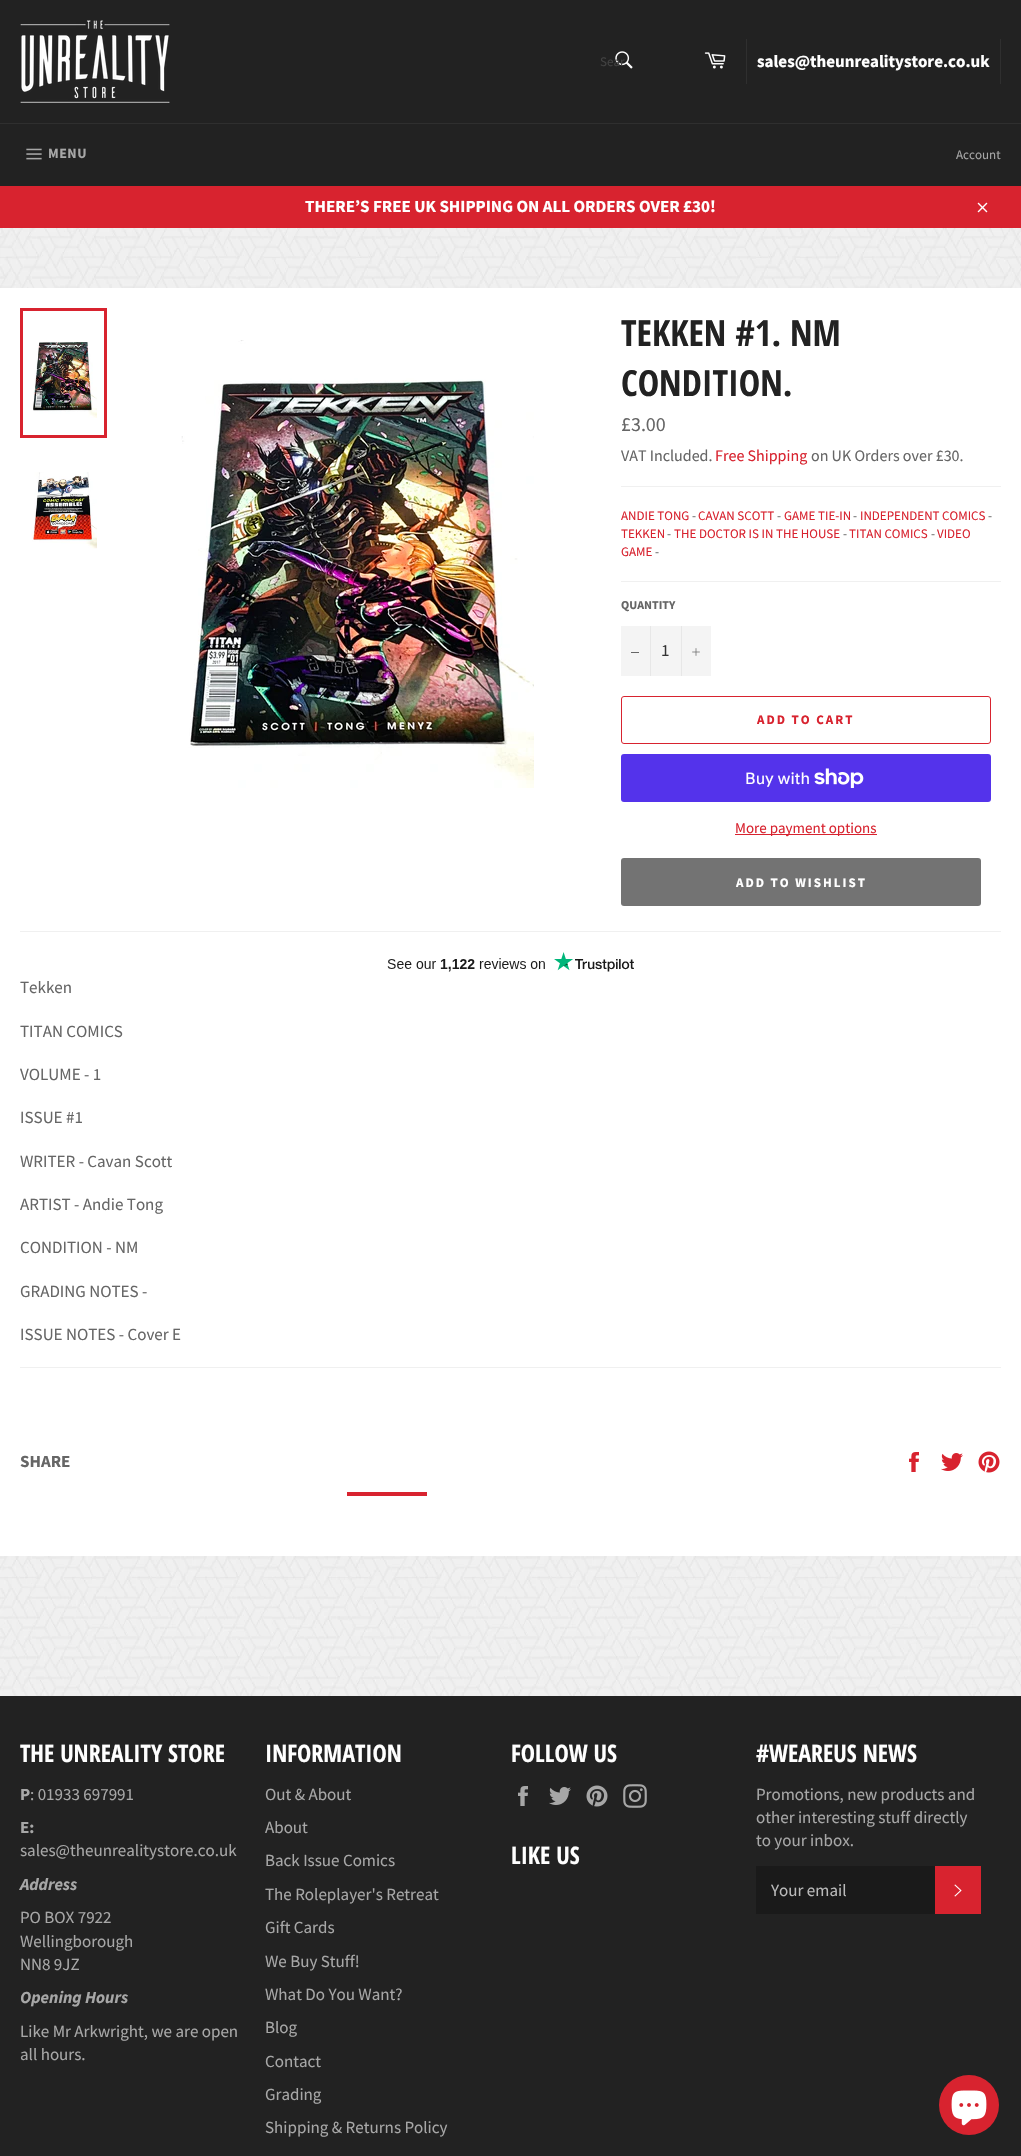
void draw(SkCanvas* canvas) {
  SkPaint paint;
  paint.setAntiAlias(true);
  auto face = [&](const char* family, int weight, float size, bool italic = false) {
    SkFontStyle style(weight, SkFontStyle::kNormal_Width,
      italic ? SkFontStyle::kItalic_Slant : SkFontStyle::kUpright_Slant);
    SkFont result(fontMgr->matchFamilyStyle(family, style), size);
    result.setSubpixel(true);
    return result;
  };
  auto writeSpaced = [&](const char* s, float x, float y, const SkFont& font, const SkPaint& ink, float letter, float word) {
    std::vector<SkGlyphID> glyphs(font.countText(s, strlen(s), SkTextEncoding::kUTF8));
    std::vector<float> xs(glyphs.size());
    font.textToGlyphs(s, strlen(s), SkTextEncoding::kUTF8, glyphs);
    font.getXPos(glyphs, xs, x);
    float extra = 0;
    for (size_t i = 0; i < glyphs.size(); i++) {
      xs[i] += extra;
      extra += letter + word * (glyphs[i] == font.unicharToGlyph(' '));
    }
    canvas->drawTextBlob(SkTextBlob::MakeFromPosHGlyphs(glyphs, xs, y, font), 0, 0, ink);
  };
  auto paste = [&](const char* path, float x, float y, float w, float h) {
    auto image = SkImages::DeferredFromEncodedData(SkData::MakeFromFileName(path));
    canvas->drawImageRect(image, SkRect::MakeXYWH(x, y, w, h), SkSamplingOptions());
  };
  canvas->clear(0xff222222);
  paste("img/1.png", 20, 20, 150, 83);
  paste("img/2.png", 615, 51, 18, 18);
  paste("img/3.png", 704, 52, 22, 17);
  {
    const struct { float x, y, w, h; SkColor color; } items[] = {
      {1000, 39, 1, 45, 0xff2f2f2f},
      {746, 39, 1, 45, 0xff2f2f2f},
      {0, 123, 1021, 1, 0xff2f2f2f},
    };
    for (auto [x, y, w, h, color] : items) {
      paint.setColor(color);
      canvas->drawRect(SkRect::MakeXYWH(x, y, w, h), paint);
    }
  }
  paste("img/4.png", 26, 148, 16, 12);
  paint.setColor(0xffd8232f);
  canvas->drawRect(SkRect::MakeXYWH(0, 186, 1021, 42), paint);
  paste("img/5.png", 977, 202, 11, 11);
  paste("img/6.png", 0, 228, 1021, 1468);
  paint.setColor(0xffffffff);
  canvas->drawRect(SkRect::MakeXYWH(0, 288, 1021, 1268), paint);
  paste("img/7.png", 33, 342, 64, 76);
  paint.setStroke(true);
  paint.setStrokeWidth(3);
  paint.setColor(0xffd8232f);
  canvas->drawRect(SkRect::MakeXYWH(21.5f, 309.5f, 84, 127), paint);
  paste("img/8.png", 31, 472, 66, 77);
  paste("img/9.png", 181, 340, 353, 448);
  paint.setStroke(false);
  {
    const struct { float x, y, w, h; SkColor color; } items[] = {
      {621, 486, 380, 1, 0xfff0f0f0},
      {621, 581, 380, 1, 0xfff0f0f0},
      {621, 626, 90, 50, 0xfff4f4f4},
      {650, 626, 1, 50, 0xffe7e7e7},
      {631, 652, 8, 1, 0xff666666},
      {681, 626, 1, 50, 0xffe7e7e7},
    };
    for (auto [x, y, w, h, color] : items) {
      paint.setColor(color);
      canvas->drawRect(SkRect::MakeXYWH(x, y, w, h), paint);
    }
  }
  paste("img/10.png", 692, 648, 8, 8);
  paint.setStroke(true);
  paint.setStrokeWidth(1);
  paint.setColor(0xffd8232f);
  canvas->drawRoundRect(SkRect::MakeXYWH(621.5f, 696.5f, 369, 47), 2.5f, 2.5f, paint);
  paint.setStroke(false);
  paint.setColor(0xff5433eb);
  canvas->drawRoundRect(SkRect::MakeXYWH(621, 754, 370, 48), 3, 3, paint);
  paste("img/11.png", 814, 768, 50, 20);
  paint.setColor(0xffd8232f);
  canvas->drawRect(SkRect::MakeXYWH(735, 834, 142, 1), paint);
  paint.setColor(0xff737373);
  canvas->drawRoundRect(SkRect::MakeXYWH(621, 858, 360, 48), 3, 3, paint);
  paint.setColor(0xfff0f0f0);
  canvas->drawRect(SkRect::MakeXYWH(20, 931, 981, 1), paint);
  paste("img/12.png", 387, 952, 247, 20);
  canvas->drawRect(SkRect::MakeXYWH(20, 1367, 981, 1), paint);
  paste("img/13.png", 909, 1452, 10, 20);
  paste("img/14.png", 941, 1453, 22, 18);
  paste("img/15.png", 978, 1451, 22, 22);
  paint.setColor(0xffd8232f);
  canvas->drawRect(SkRect::MakeXYWH(347, 1492, 80, 4), paint);
  paste("img/16.png", 518, 1786, 10, 20);
  paste("img/17.png", 549, 1787, 22, 18);
  paste("img/18.png", 586, 1785, 22, 22);
  paste("img/19.png", 623, 1784, 24, 24);
  paint.setColor(0xff1a1a1a);
  canvas->drawRect(SkRect::MakeXYWH(756, 1866, 179, 48), paint);
  paint.setColor(0xffd8232f);
  canvas->drawRect(SkRect::MakeXYWH(935, 1866, 46, 48), paint);
  paste("img/20.png", 954, 1884, 8, 13);
  canvas->drawCircle(969, 2105, 30, paint);
  paste("img/21.png", 951, 2090, 36, 36);
  auto f0 = face("Source Sans Pro", 400, 13);
  paint.setColor(0xff424242);
  canvas->drawString("Sear", 600, 66, f0, paint);
  auto f1 = face("Source Sans Pro", 700, 17);
  paint.setColor(0xffffffff);
  canvas->drawString("sales@theunrealitystore.co.uk", 757, 67, f1, paint);
  auto f2 = face("Source Sans Pro", 700, 14);
  paint.setColor(0xffa7a7a7);
  writeSpaced("MENU", 48, 158, f2, paint, 0.5f, 0);
  canvas->drawString("Account", 956, 159, f0, paint);
  paint.setColor(0xffffffff);
  canvas->drawString("THERE’S FREE UK SHIPPING ON ALL ORDERS OVER £30!", 305, 212, f1, paint);
  auto f3 = face("Open Sans Condensed", 700, 36);
  paint.setColor(0xff222222);
  canvas->drawString("TEKKEN #1. NM", 621, 346, f3, paint);
  canvas->drawString("CONDITION.", 621, 396, f3, paint);
  auto f4 = face("Source Sans Pro", 400, 20);
  paint.setColor(0xff666666);
  canvas->drawString("£3.00", 621, 431, f4, paint);
  auto f5 = face("Source Sans Pro", 400, 16);
  canvas->drawString("VAT Included.", 621, 461, f5, paint);
  paint.setColor(0xffd8232f);
  canvas->drawString("Free Shipping", 715, 461, f5, paint);
  paint.setColor(0xff666666);
  canvas->drawString("on UK Orders over £30.", 811, 461, f5, paint);
  paint.setColor(0xffd8232f);
  canvas->drawString("ANDIE TONG", 621, 520, f0, paint);
  paint.setColor(0xff666666);
  canvas->drawString("-", 692, 520, f0, paint);
  paint.setColor(0xffd8232f);
  canvas->drawString("CAVAN SCOTT", 698, 520, f0, paint);
  paint.setColor(0xff666666);
  canvas->drawString("-", 777, 520, f0, paint);
  paint.setColor(0xffd8232f);
  canvas->drawString("GAME TIE-IN", 784, 520, f0, paint);
  paint.setColor(0xff666666);
  canvas->drawString("-", 853, 520, f0, paint);
  paint.setColor(0xffd8232f);
  canvas->drawString("INDEPENDENT COMICS", 860, 520, f0, paint);
  paint.setColor(0xff666666);
  canvas->drawString("-", 988, 520, f0, paint);
  paint.setColor(0xffd8232f);
  canvas->drawString("TEKKEN", 621, 538, f0, paint);
  paint.setColor(0xff666666);
  canvas->drawString("-", 667, 538, f0, paint);
  paint.setColor(0xffd8232f);
  canvas->drawString("THE DOCTOR IS IN THE HOUSE", 674, 538, f0, paint);
  paint.setColor(0xff666666);
  canvas->drawString("-", 843, 538, f0, paint);
  paint.setColor(0xffd8232f);
  canvas->drawString("TITAN COMICS", 849, 538, f0, paint);
  paint.setColor(0xff666666);
  canvas->drawString("-", 931, 538, f0, paint);
  paint.setColor(0xffd8232f);
  canvas->drawString("VIDEO", 937, 538, f0, paint);
  canvas->drawString("GAME", 621, 556, f0, paint);
  paint.setColor(0xff666666);
  canvas->drawString("-", 655, 556, f0, paint);
  auto f6 = face("Source Sans Pro", 700, 12);
  canvas->drawString("QUANTITY", 621, 609, f6, paint);
  auto f7 = face("Source Sans Pro", 400, 17);
  paint.setColor(0xff333333);
  canvas->drawString("1", 661, 656, f7, paint);
  auto f8 = face("Source Sans Pro", 700, 13);
  paint.setColor(0xffd8232f);
  writeSpaced("ADD TO CART", 757, 724, f8, paint, 2, 0);
  auto f9 = face("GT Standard", 400, 16);
  paint.setColor(0xffffffff);
  canvas->drawString("Buy with", 745, 784, f9, paint);
  auto f10 = face("Source Sans Pro", 400, 15);
  paint.setColor(0xffd8232f);
  canvas->drawString("More payment options", 735, 833, f10, paint);
  paint.setColor(0xffffffff);
  writeSpaced("ADD TO WISHLIST", 736, 887, f8, paint, 2, 0);
  paint.setColor(0xff666666);
  {
    const struct { const char* s; float x, y; } items[] = {
      {"Tekken", 20, 993},
      {"TITAN COMICS", 20, 1037},
      {"VOLUME - 1", 20, 1080},
      {"ISSUE #1", 20, 1123},
      {"WRITER - Cavan Scott", 20, 1167},
      {"ARTIST - Andie Tong", 20, 1210},
      {"CONDITION - NM", 20, 1253},
      {"GRADING NOTES -", 20, 1297},
      {"ISSUE NOTES - Cover E", 20, 1340},
    };
    for (auto [s, x, y] : items) {
      canvas->drawString(s, x, y, f7, paint);
    }
  }
  canvas->drawString("SHARE", 20, 1467, f1, paint);
  auto f11 = face("Open Sans Condensed", 700, 24);
  paint.setColor(0xffffffff);
  canvas->drawString("THE UNREALITY STORE", 20, 1762, f11, paint);
  paint.setColor(0xffa7a7a7);
  canvas->drawString("P", 20, 1800, f1, paint);
  canvas->drawString(": 01933 697991", 30, 1800, f7, paint);
  canvas->drawString("E:", 20, 1833, f1, paint);
  canvas->drawString("sales@theunrealitystore.co.uk", 20, 1856, f7, paint);
  auto f12 = face("Source Sans Pro", 700, 17, true);
  canvas->drawString("Address", 20, 1890, f12, paint);
  {
    const struct { const char* s; float x, y; } items[] = {
      {"PO BOX 7922", 20, 1923},
      {"Wellingborough", 20, 1947},
      {"NN8 9JZ", 20, 1970},
    };
    for (auto [s, x, y] : items) {
      canvas->drawString(s, x, y, f7, paint);
    }
  }
  canvas->drawString("Opening Hours", 20, 2003, f12, paint);
  canvas->drawString("Like Mr Arkwright, we are open", 20, 2037, f7, paint);
  canvas->drawString("all hours.", 20, 2060, f7, paint);
  paint.setColor(0xffffffff);
  canvas->drawString("INFORMATION", 265, 1762, f11, paint);
  paint.setColor(0xffa7a7a7);
  {
    const struct { const char* s; float x, y; } items[] = {
      {"Out & About", 265, 1800},
      {"About", 265, 1833},
      {"Back Issue Comics", 265, 1866},
      {"The Roleplayer's Retreat", 265, 1900},
      {"Gift Cards", 265, 1933},
      {"We Buy Stuff!", 265, 1967},
      {"What Do You Want?", 265, 2000},
      {"Blog", 265, 2033},
      {"Contact", 265, 2067},
      {"Grading", 265, 2100},
      {"Shipping & Returns Policy", 265, 2133},
    };
    for (auto [s, x, y] : items) {
      canvas->drawString(s, x, y, f7, paint);
    }
  }
  paint.setColor(0xffffffff);
  {
    const struct { const char* s; float x, y; } items[] = {
      {"FOLLOW US", 511, 1762},
      {"LIKE US", 511, 1864},
      {"#WEAREUS NEWS", 756, 1762},
    };
    for (auto [s, x, y] : items) {
      canvas->drawString(s, x, y, f11, paint);
    }
  }
  paint.setColor(0xffa7a7a7);
  {
    const struct { const char* s; float x, y; } items[] = {
      {"Promotions, new products and", 756, 1800},
      {"other interesting stuff directly", 756, 1823},
      {"to your inbox.", 756, 1846},
    };
    for (auto [s, x, y] : items) {
      canvas->drawString(s, x, y, f7, paint);
    }
  }
  paint.setColor(0xffbababa);
  canvas->drawString("Your email", 771, 1896, f7, paint);
}
